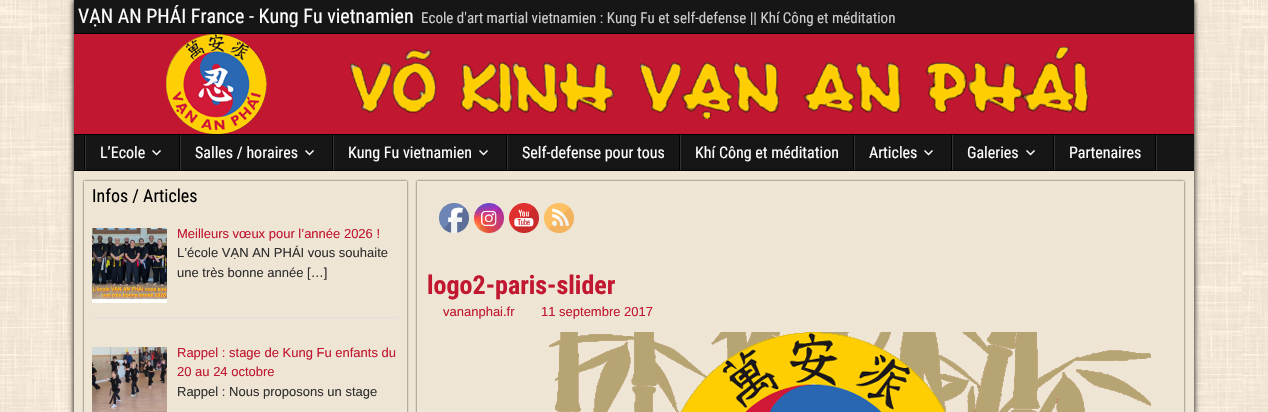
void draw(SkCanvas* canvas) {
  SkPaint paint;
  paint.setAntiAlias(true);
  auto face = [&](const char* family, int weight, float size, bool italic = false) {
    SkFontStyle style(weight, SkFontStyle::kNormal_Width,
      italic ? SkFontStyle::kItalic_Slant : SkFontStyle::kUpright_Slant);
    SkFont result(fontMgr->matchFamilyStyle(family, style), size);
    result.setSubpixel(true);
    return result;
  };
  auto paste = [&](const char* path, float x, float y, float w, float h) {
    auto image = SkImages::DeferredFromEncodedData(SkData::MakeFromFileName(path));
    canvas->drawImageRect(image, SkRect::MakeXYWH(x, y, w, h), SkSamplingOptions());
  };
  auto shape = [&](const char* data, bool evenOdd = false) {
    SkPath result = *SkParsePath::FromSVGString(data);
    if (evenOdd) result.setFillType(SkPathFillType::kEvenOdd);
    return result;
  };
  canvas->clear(0xffffffff);
  paste("img/1.png", 0, 0, 1268, 412);
  paint.setColor(0xff000000);
  paint.setMaskFilter(SkMaskFilter::MakeBlur(kNormal_SkBlurStyle, 3));
  canvas->drawRect(SkRect::MakeXYWH(74, 0, 1120, 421), paint);
  paint.setMaskFilter(nullptr);
  {
    const struct { float x, y, w, h; SkColor color; } items[] = {
      {74, 0, 1120, 33, 0xff161616},
      {74, 33, 1120, 1, 0xff000000},
      {74, 34, 1120, 100, 0xffc11730},
      {74, 134, 1120, 1, 0xff000000},
    };
    for (auto [x, y, w, h, color] : items) {
      paint.setColor(color);
      canvas->drawRect(SkRect::MakeXYWH(x, y, w, h), paint);
    }
  }
  paste("img/2.png", 166, 34, 923, 100);
  {
    const struct { float x, y, w, h; SkColor color; } items[] = {
      {74, 135, 1120, 35, 0xff161616},
      {74, 170, 1120, 1, 0xff000000},
      {1156, 135, 1, 35, 0xff343434},
      {84, 135, 1, 35, 0xff000000},
    };
    for (auto [x, y, w, h, color] : items) {
      paint.setColor(color);
      canvas->drawRect(SkRect::MakeXYWH(x, y, w, h), paint);
    }
  }
  {
    const SkColor colors[] = {0xff161616, 0xff131313};
    const float stops[] = {0.7f, 1};
    const SkPoint ends[] = {{133, 135}, {133, 170}};
    paint.setShader(SkGradientShader::MakeLinear(ends, colors, stops, 2, SkTileMode::kClamp));
    paint.setAlpha(255);
  }
  canvas->drawRect(SkRect::MakeXYWH(86, 168, 93, 2), paint);
  paint.setShader(nullptr);
  paint.setColor(0xff000000);
  canvas->drawRect(SkRect::MakeXYWH(179, 135, 1, 35), paint);
  paint.setColor(0xff343434);
  canvas->drawRect(SkRect::MakeXYWH(85, 135, 1, 35), paint);
  paste("img/3.png", 152, 150, 9, 6);
  {
    const SkColor colors[] = {0xff161616, 0xff131313};
    const float stops[] = {0.7f, 1};
    const SkPoint ends[] = {{257, 135}, {257, 170}};
    paint.setShader(SkGradientShader::MakeLinear(ends, colors, stops, 2, SkTileMode::kClamp));
    paint.setAlpha(255);
  }
  canvas->drawRect(SkRect::MakeXYWH(181, 168, 151, 2), paint);
  paint.setShader(nullptr);
  paint.setColor(0xff000000);
  canvas->drawRect(SkRect::MakeXYWH(332, 135, 1, 35), paint);
  paint.setColor(0xff343434);
  canvas->drawRect(SkRect::MakeXYWH(180, 135, 1, 35), paint);
  paste("img/3.png", 305, 150, 9, 6);
  {
    const SkColor colors[] = {0xff161616, 0xff131313};
    const float stops[] = {0.7f, 1};
    const SkPoint ends[] = {{420, 135}, {420, 170}};
    paint.setShader(SkGradientShader::MakeLinear(ends, colors, stops, 2, SkTileMode::kClamp));
    paint.setAlpha(255);
  }
  canvas->drawRect(SkRect::MakeXYWH(334, 168, 172, 2), paint);
  paint.setShader(nullptr);
  paint.setColor(0xff000000);
  canvas->drawRect(SkRect::MakeXYWH(506, 135, 1, 35), paint);
  paint.setColor(0xff343434);
  canvas->drawRect(SkRect::MakeXYWH(333, 135, 1, 35), paint);
  paste("img/3.png", 479, 150, 9, 6);
  {
    const SkColor colors[] = {0xff161616, 0xff131313};
    const float stops[] = {0.7f, 1};
    const SkPoint ends[] = {{594, 135}, {594, 170}};
    paint.setShader(SkGradientShader::MakeLinear(ends, colors, stops, 2, SkTileMode::kClamp));
    paint.setAlpha(255);
  }
  canvas->drawRect(SkRect::MakeXYWH(508, 168, 171, 2), paint);
  paint.setShader(nullptr);
  paint.setColor(0xff000000);
  canvas->drawRect(SkRect::MakeXYWH(679, 135, 1, 35), paint);
  paint.setColor(0xff343434);
  canvas->drawRect(SkRect::MakeXYWH(507, 135, 1, 35), paint);
  {
    const SkColor colors[] = {0xff161616, 0xff131313};
    const float stops[] = {0.7f, 1};
    const SkPoint ends[] = {{767, 135}, {767, 170}};
    paint.setShader(SkGradientShader::MakeLinear(ends, colors, stops, 2, SkTileMode::kClamp));
    paint.setAlpha(255);
  }
  canvas->drawRect(SkRect::MakeXYWH(681, 168, 172, 2), paint);
  paint.setShader(nullptr);
  paint.setColor(0xff000000);
  canvas->drawRect(SkRect::MakeXYWH(853, 135, 1, 35), paint);
  paint.setColor(0xff343434);
  canvas->drawRect(SkRect::MakeXYWH(680, 135, 1, 35), paint);
  {
    const SkColor colors[] = {0xff161616, 0xff131313};
    const float stops[] = {0.7f, 1};
    const SkPoint ends[] = {{903, 135}, {903, 170}};
    paint.setShader(SkGradientShader::MakeLinear(ends, colors, stops, 2, SkTileMode::kClamp));
    paint.setAlpha(255);
  }
  canvas->drawRect(SkRect::MakeXYWH(855, 168, 96, 2), paint);
  paint.setShader(nullptr);
  paint.setColor(0xff000000);
  canvas->drawRect(SkRect::MakeXYWH(951, 135, 1, 35), paint);
  paint.setColor(0xff343434);
  canvas->drawRect(SkRect::MakeXYWH(854, 135, 1, 35), paint);
  paste("img/3.png", 924, 150, 9, 6);
  {
    const SkColor colors[] = {0xff161616, 0xff131313};
    const float stops[] = {0.7f, 1};
    const SkPoint ends[] = {{1003, 135}, {1003, 170}};
    paint.setShader(SkGradientShader::MakeLinear(ends, colors, stops, 2, SkTileMode::kClamp));
    paint.setAlpha(255);
  }
  canvas->drawRect(SkRect::MakeXYWH(953, 168, 100, 2), paint);
  paint.setShader(nullptr);
  paint.setColor(0xff000000);
  canvas->drawRect(SkRect::MakeXYWH(1053, 135, 1, 35), paint);
  paint.setColor(0xff343434);
  canvas->drawRect(SkRect::MakeXYWH(952, 135, 1, 35), paint);
  paste("img/3.png", 1026, 150, 9, 6);
  {
    const SkColor colors[] = {0xff161616, 0xff131313};
    const float stops[] = {0.7f, 1};
    const SkPoint ends[] = {{1105, 135}, {1105, 170}};
    paint.setShader(SkGradientShader::MakeLinear(ends, colors, stops, 2, SkTileMode::kClamp));
    paint.setAlpha(255);
  }
  canvas->drawRect(SkRect::MakeXYWH(1055, 168, 100, 2), paint);
  paint.setShader(nullptr);
  {
    const struct { float x, y, w, h; SkColor color; } items[] = {
      {1155, 135, 1, 35, 0xff000000},
      {1054, 135, 1, 35, 0xff343434},
      {74, 171, 1120, 241, 0xffefe5d5},
    };
    for (auto [x, y, w, h, color] : items) {
      paint.setColor(color);
      canvas->drawRect(SkRect::MakeXYWH(x, y, w, h), paint);
    }
  }
  canvas->save();
  canvas->clipPath(shape("M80 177H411V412H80ZM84 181H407V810H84Z", true), true);
  paint.setColor(0xff333333);
  paint.setMaskFilter(SkMaskFilter::MakeBlur(kNormal_SkBlurStyle, 1));
  canvas->drawRect(SkRect::MakeXYWH(84, 181, 323, 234), paint);
  paint.setMaskFilter(nullptr);
  canvas->restore();
  paint.setColor(0xffe0e0e0);
  canvas->drawRect(SkRect::MakeXYWH(92, 317, 307, 1), paint);
  paste("img/4.png", 92, 228, 75, 75);
  paste("img/5.png", 92, 347, 75, 65);
  canvas->save();
  canvas->clipPath(shape("M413 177H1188V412H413ZM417 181H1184V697H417Z", true), true);
  paint.setColor(0xff333333);
  paint.setMaskFilter(SkMaskFilter::MakeBlur(kNormal_SkBlurStyle, 1));
  canvas->drawRect(SkRect::MakeXYWH(417, 181, 767, 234), paint);
  paint.setMaskFilter(nullptr);
  canvas->restore();
  paste("img/6.png", 439, 203, 30, 30);
  paste("img/7.png", 474, 203, 30, 30);
  paste("img/8.png", 509, 203, 30, 30);
  paste("img/9.png", 544, 203, 30, 30);
  paste("img/10.png", 549, 332, 602, 80);
  auto f0 = face("Roboto Condensed", 400, 20);
  paint.setColor(0xffffffff);
  canvas->drawString("VẠN AN PHÁI France - Kung Fu vietnamien", 78, 23, f0, paint);
  auto f1 = face("Roboto Condensed", 400, 15);
  paint.setColor(0xffcccccc);
  canvas->drawString("Ecole d'art martial vietnamien : Kung Fu et self-defense || Khí Công et méditation", 421, 23, f1, paint);
  auto f2 = face("Roboto Condensed", 400, 16);
  paint.setColor(0xffffffff);
  {
    const struct { const char* s; float x, y; } items[] = {
      {"L’Ecole", 100, 158},
      {"Salles / horaires", 195, 158},
      {"Kung Fu vietnamien", 348, 158},
      {"Self-defense pour tous", 522, 158},
      {"Khí Công et méditation", 695, 158},
      {"Articles", 869, 158},
      {"Galeries", 967, 158},
      {"Partenaires", 1069, 158},
    };
    for (auto [s, x, y] : items) {
      canvas->drawString(s, x, y, f2, paint);
    }
  }
  auto f3 = face("Roboto Condensed", 400, 18);
  paint.setColor(0xff000000);
  canvas->drawString("Infos / Articles", 92, 202, f3, paint);
  auto f4 = face("Liberation Sans", 400, 13);
  paint.setColor(0xffc11730);
  canvas->drawString("Meilleurs vœux pour l’année 2026 !", 177, 238, f4, paint);
  paint.setColor(0xff303030);
  canvas->drawString("L’école VẠN AN PHÁI vous souhaite", 177, 257, f4, paint);
  canvas->drawString("une très bonne année […]", 177, 277, f4, paint);
  paint.setColor(0xffc11730);
  canvas->drawString("Rappel : stage de Kung Fu enfants du", 177, 357, f4, paint);
  canvas->drawString("20 au 24 octobre", 177, 376, f4, paint);
  paint.setColor(0xff303030);
  canvas->drawString("Rappel : Nous proposons un stage", 177, 396, f4, paint);
  auto f5 = face("Roboto Condensed", 700, 26);
  paint.setColor(0xffc11730);
  canvas->drawString("logo2-paris-slider", 427, 294, f5, paint);
  canvas->drawString("vananphai.fr", 443, 316, f4, paint);
  canvas->drawString("11 septembre 2017", 541, 316, f4, paint);
}
